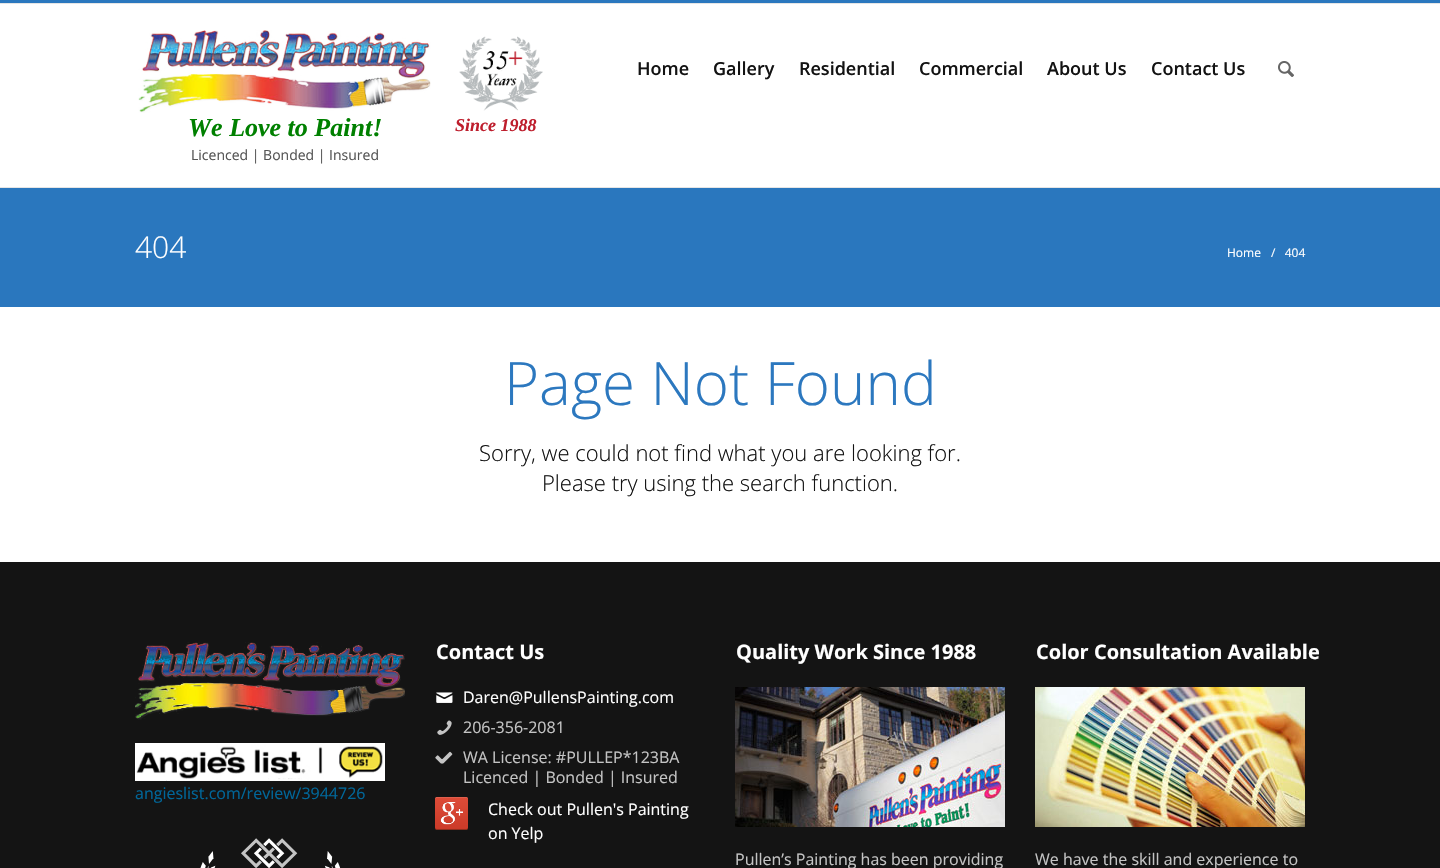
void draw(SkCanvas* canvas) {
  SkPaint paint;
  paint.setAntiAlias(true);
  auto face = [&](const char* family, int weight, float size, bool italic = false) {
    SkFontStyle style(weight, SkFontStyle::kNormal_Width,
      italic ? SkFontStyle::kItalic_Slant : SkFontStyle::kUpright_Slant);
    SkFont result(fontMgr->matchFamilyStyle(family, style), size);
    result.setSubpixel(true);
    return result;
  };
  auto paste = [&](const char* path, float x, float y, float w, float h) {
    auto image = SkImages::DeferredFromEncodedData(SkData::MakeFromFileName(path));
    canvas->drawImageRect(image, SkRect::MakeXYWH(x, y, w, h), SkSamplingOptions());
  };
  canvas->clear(0xffffffff);
  {
    const struct { float x, y, w, h; SkColor color; } items[] = {
      {0, 187, 1440, 1, 0xffe5e5e5},
      {0, 0, 1440, 3, 0xff2a77be},
      {0, 3, 1440, 1, 0xffe5e5e5},
    };
    for (auto [x, y, w, h, color] : items) {
      paint.setColor(color);
      canvas->drawRect(SkRect::MakeXYWH(x, y, w, h), paint);
    }
  }
  paste("img/1.png", 1278, 61, 16, 16);
  paste("img/2.png", 138, 30, 293, 83);
  paste("img/3.png", 459, 36, 84, 75);
  paint.setColor(0xff2a77be);
  canvas->drawRect(SkRect::MakeXYWH(0, 188, 1440, 119), paint);
  paint.setColor(0xff141414);
  canvas->drawRect(SkRect::MakeXYWH(0, 562, 1440, 306), paint);
  paste("img/4.png", 135, 642, 270, 78);
  paste("img/5.png", 135, 743, 250, 38);
  paste("img/6.png", 200, 838, 141, 30);
  paste("img/7.png", 436, 692, 17, 11);
  paste("img/8.png", 437, 720, 15, 15);
  paste("img/9.png", 435, 751, 18, 13);
  paste("img/10.png", 435, 797, 33, 33);
  paste("img/11.png", 735, 687, 270, 140);
  paste("img/12.png", 1035, 687, 270, 140);
  auto f0 = face("Open Sans", 600, 18);
  paint.setColor(0xff131313);
  {
    const struct { const char* s; float x, y; } items[] = {
      {"Home", 637, 75},
      {"Gallery", 713, 75},
      {"Residential", 799, 75},
      {"Commercial", 919, 75},
      {"About Us", 1047, 75},
      {"Contact Us", 1151, 75},
    };
    for (auto [s, x, y] : items) {
      canvas->drawString(s, x, y, f0, paint);
    }
  }
  auto f1 = face("Liberation Serif", 700, 26, true);
  paint.setColor(0xff008000);
  canvas->drawString("We Love to Paint!", 188, 136, f1, paint);
  auto f2 = face("Open Sans", 400, 14);
  paint.setColor(0xff555555);
  canvas->drawString("Licenced | Bonded | Insured", 191, 160, f2, paint);
  auto f3 = face("Liberation Serif", 700, 18, true);
  paint.setColor(0xffbe1e2d);
  canvas->drawString("Since 1988", 455, 131, f3, paint);
  auto f4 = face("Open Sans", 300, 30);
  paint.setColor(0xffffffff);
  canvas->drawString("404", 135, 258, f4, paint);
  auto f5 = face("Open Sans", 400, 12);
  canvas->drawString("Home", 1227, 257, f5, paint);
  canvas->drawString("/   404", 1271, 257, f5, paint);
  auto f6 = face("Open Sans", 300, 60);
  paint.setColor(0xff2c78bf);
  canvas->drawString("Page Not Found", 504, 405, f6, paint);
  auto f7 = face("Open Sans", 300, 22);
  paint.setColor(0xff131313);
  canvas->drawString("Sorry, we could not find what you are looking for.", 479, 461, f7, paint);
  canvas->drawString("Please try using the search function.", 542, 491, f7, paint);
  auto f8 = face("Open Sans", 400, 16);
  paint.setColor(0xff006699);
  canvas->drawString("angieslist.com/review/3944726", 135, 799, f8, paint);
  auto f9 = face("Open Sans", 700, 20);
  paint.setColor(0xffffffff);
  canvas->drawString("Contact Us", 436, 659, f9, paint);
  canvas->drawString("Daren@PullensPainting.com", 463, 703, f8, paint);
  paint.setColor(0xffc4c4c4);
  {
    const struct { const char* s; float x, y; } items[] = {
      {"206-356-2081", 463, 733},
      {"WA License: #PULLEP*123BA", 463, 763},
      {"Licenced | Bonded | Insured", 463, 783},
    };
    for (auto [s, x, y] : items) {
      canvas->drawString(s, x, y, f8, paint);
    }
  }
  paint.setColor(0xffffffff);
  canvas->drawString("Check out Pullen's Painting", 488, 815, f8, paint);
  canvas->drawString("on Yelp", 488, 839, f8, paint);
  canvas->drawString("Quality Work Since 1988", 736, 659, f9, paint);
  paint.setColor(0xffc4c4c4);
  canvas->drawString("Pullen’s Painting has been providing", 735, 865, f8, paint);
  paint.setColor(0xffffffff);
  canvas->drawString("Color Consultation Available", 1036, 659, f9, paint);
  paint.setColor(0xffc4c4c4);
  canvas->drawString("We have the skill and experience to", 1035, 865, f8, paint);
}
